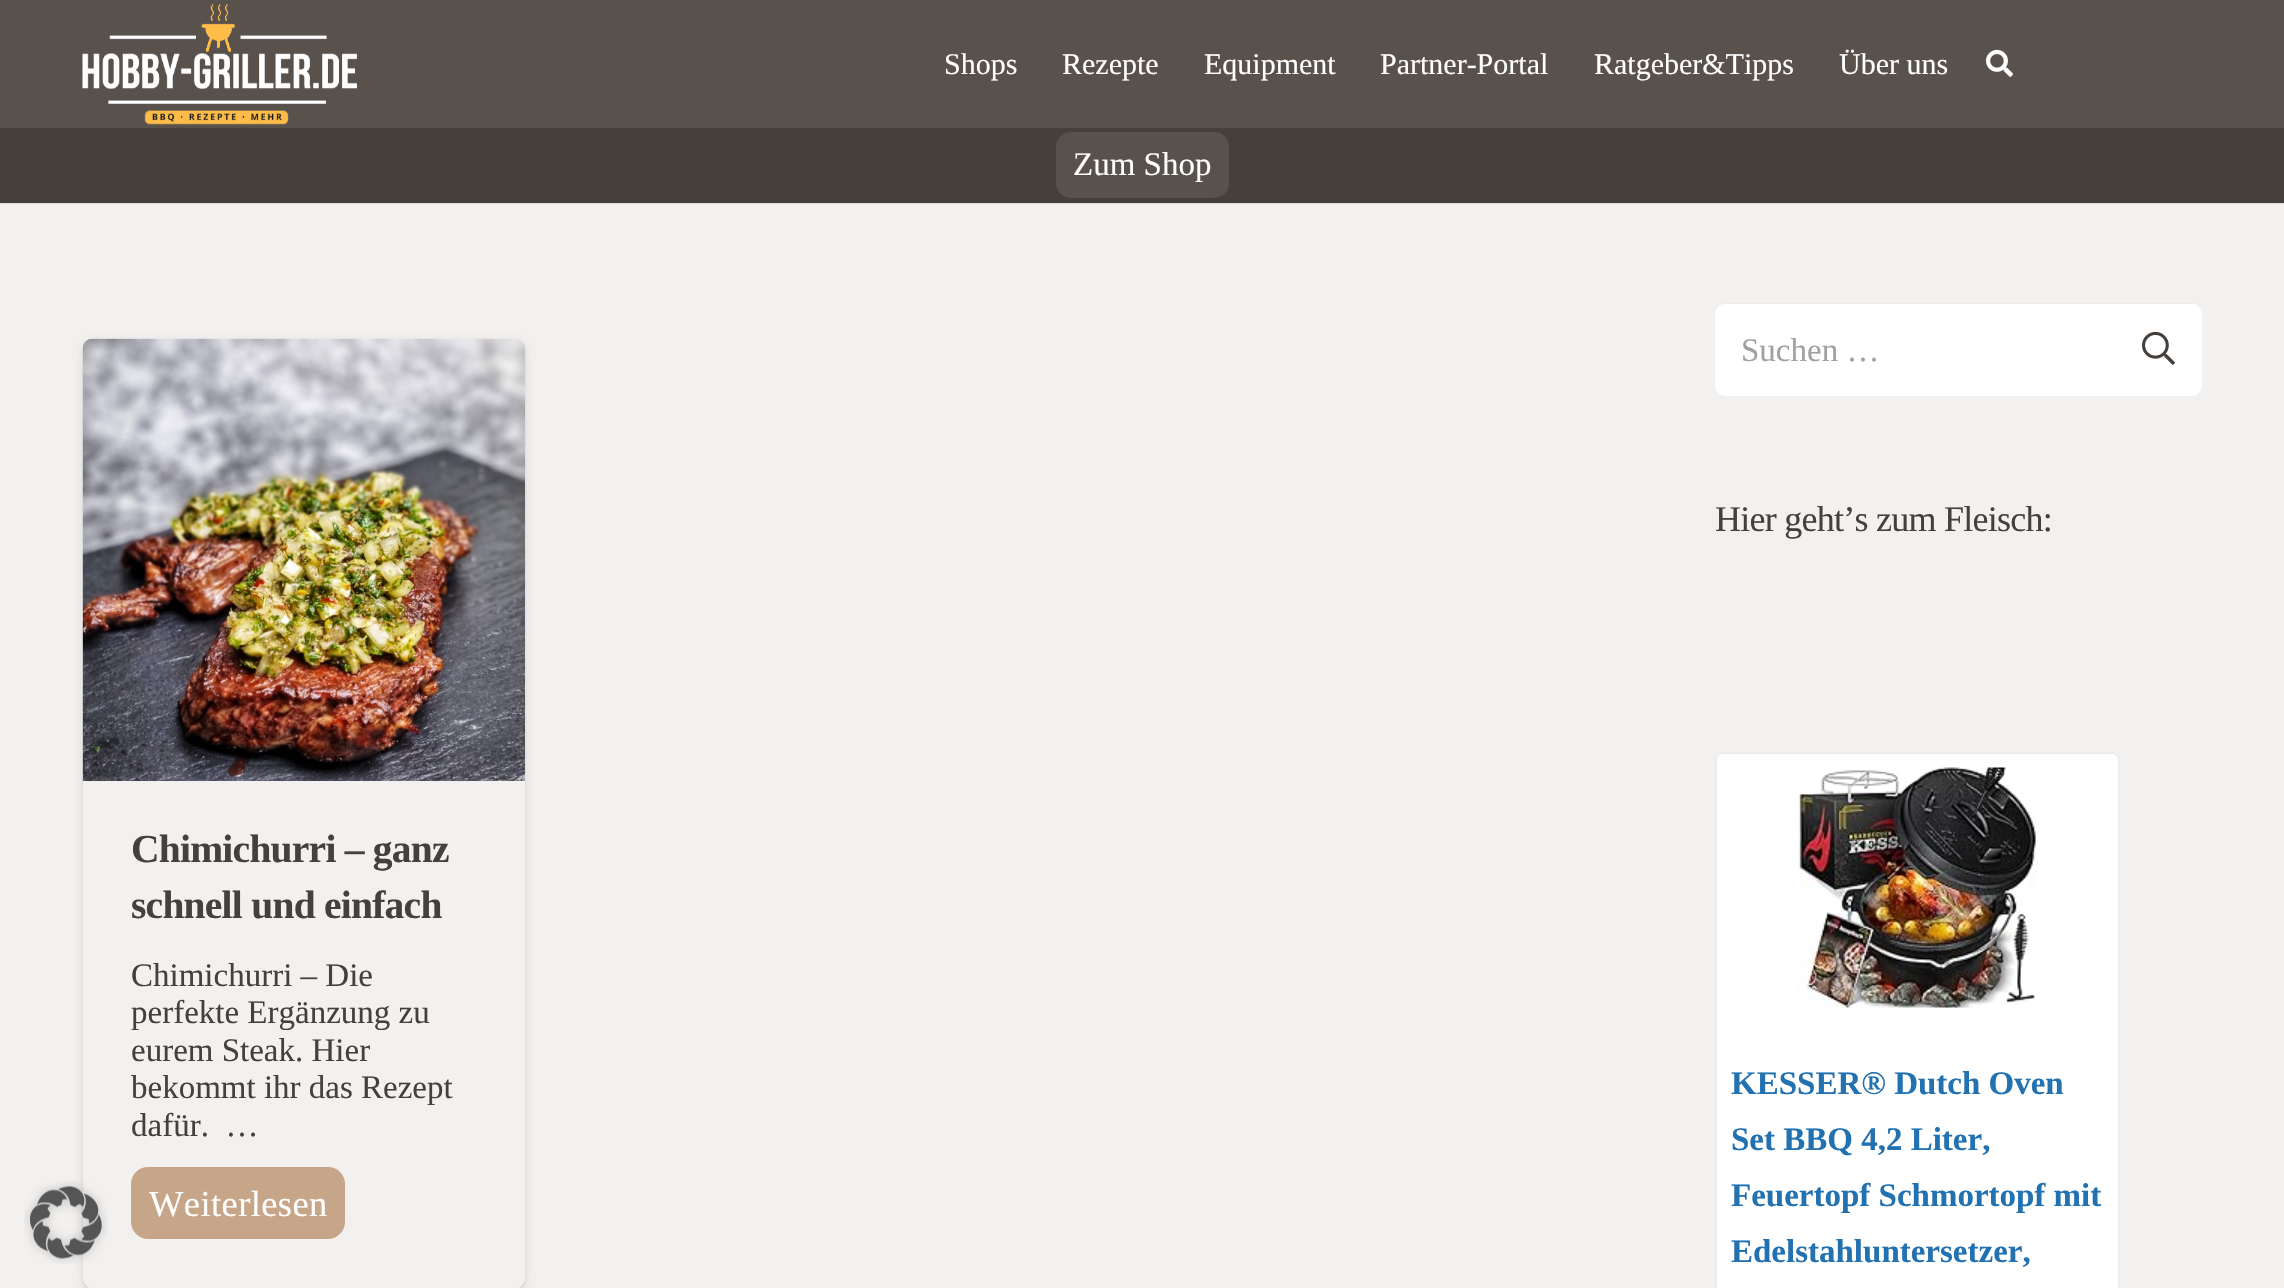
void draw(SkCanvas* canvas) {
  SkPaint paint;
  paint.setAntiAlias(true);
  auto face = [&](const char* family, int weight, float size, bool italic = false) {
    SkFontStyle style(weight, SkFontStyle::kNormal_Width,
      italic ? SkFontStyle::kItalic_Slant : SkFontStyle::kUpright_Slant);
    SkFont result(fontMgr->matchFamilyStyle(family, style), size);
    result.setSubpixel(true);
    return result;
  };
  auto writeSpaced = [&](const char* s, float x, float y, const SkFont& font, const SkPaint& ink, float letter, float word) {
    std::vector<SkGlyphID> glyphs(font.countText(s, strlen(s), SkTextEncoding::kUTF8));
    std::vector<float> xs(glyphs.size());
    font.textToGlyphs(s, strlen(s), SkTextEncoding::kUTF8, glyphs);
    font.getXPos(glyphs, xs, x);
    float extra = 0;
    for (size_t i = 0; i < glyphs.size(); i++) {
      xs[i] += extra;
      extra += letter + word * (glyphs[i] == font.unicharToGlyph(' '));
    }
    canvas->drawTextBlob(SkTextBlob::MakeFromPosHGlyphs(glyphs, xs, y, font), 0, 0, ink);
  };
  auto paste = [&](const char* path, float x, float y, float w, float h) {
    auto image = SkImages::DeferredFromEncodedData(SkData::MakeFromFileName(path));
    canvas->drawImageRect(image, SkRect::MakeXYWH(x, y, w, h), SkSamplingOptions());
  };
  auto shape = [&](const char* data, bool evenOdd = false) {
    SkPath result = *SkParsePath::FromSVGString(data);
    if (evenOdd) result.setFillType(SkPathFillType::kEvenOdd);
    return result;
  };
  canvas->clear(0xfff2f1f0);
  paint.setColor(0x1a000000);
  paint.setMaskFilter(SkMaskFilter::MakeBlur(kNormal_SkBlurStyle, 5));
  canvas->drawRoundRect(SkRect::MakeXYWH(83, 342, 442, 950), 11, 11, paint);
  paint.setMaskFilter(nullptr);
  paint.setMaskFilter(SkMaskFilter::MakeBlur(kNormal_SkBlurStyle, 1));
  canvas->drawRoundRect(SkRect::MakeXYWH(83, 341, 442, 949), 11, 11, paint);
  paint.setMaskFilter(nullptr);
  paint.setColor(0xfff2f1f0);
  canvas->drawRoundRect(SkRect::MakeXYWH(83, 339, 442, 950), 11, 11, paint);
  paste("img/1.png", 24, 1180, 84, 84);
  paint.setColor(0xff59524c);
  canvas->drawRect(SkRect::MakeXYWH(0, 0, 2284, 128), paint);
  paste("img/2.png", 82, 4, 275, 121);
  paste("img/3.png", 1986, 49, 27, 28);
  paint.setColor(0xffdfdedd);
  canvas->drawPath(shape("M0 202V204H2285V129H2284V202Z"), paint);
  paint.setColor(0xff46403c);
  canvas->drawRect(SkRect::MakeXYWH(0, 128, 2284, 75), paint);
  paint.setColor(0xff59524c);
  canvas->drawRoundRect(SkRect::MakeXYWH(1056, 132, 173, 66), 15, 15, paint);
  paste("img/4.png", 82, 338, 443, 443);
  paint.setColor(0xffc7a589);
  canvas->drawRoundRect(SkRect::MakeXYWH(131, 1167, 214, 72), 17, 17, paint);
  paint.setColor(0xffffffff);
  canvas->drawRoundRect(SkRect::MakeXYWH(1715, 303, 487, 93), 11, 11, paint);
  paint.setColor(0x14000000);
  canvas->drawPath(shape("M1724 304H2192C2198 304 2202 309 2202 314C2202 308 2197 303 2191 303H1726C1723 303 1720 304 1719 306C1720 305 1722 304 1724 304Z"), paint);
  paste("img/5.png", 2142, 331, 33, 34);
  paint.setColor(0xffffffff);
  canvas->drawRoundRect(SkRect::MakeXYWH(1716, 753, 403, 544), 7, 7, paint);
  paint.setStroke(true);
  paint.setStrokeWidth(2);
  paint.setColor(0xffececec);
  canvas->drawRoundRect(SkRect::MakeXYWH(1716, 753, 403, 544), 7, 7, paint);
  paste("img/6.png", 1797, 767, 240, 241);
  auto f0 = face("Liberation Serif", 400, 30);
  paint.setStroke(false);
  paint.setColor(0xffffffff);
  {
    const struct { const char* s; float x, y; } items[] = {
      {"Shops", 944, 74},
      {"Rezepte", 1062, 74},
      {"Equipment", 1204, 74},
      {"Partner-Portal", 1380, 74},
      {"Ratgeber&Tipps", 1594, 74},
      {"Über uns", 1839, 74},
    };
    for (auto [s, x, y] : items) {
      canvas->drawString(s, x, y, f0, paint);
    }
  }
  auto f1 = face("Liberation Serif", 400, 33);
  canvas->drawString("Zum Shop", 1073, 175, f1, paint);
  auto f2 = face("Liberation Serif", 700, 39.5f);
  paint.setColor(0xff46403c);
  writeSpaced("Chimichurri – ganz", 131, 862, f2, paint, -0.75f, 0);
  writeSpaced("schnell und einfach", 131, 918, f2, paint, -0.75f, 0);
  {
    const struct { const char* s; float x, y; } items[] = {
      {"Chimichurri – Die", 131, 986},
      {"perfekte Ergänzung zu", 131, 1023},
      {"eurem Steak. Hier", 131, 1061},
      {"bekommt ihr das Rezept", 131, 1098},
      {"dafür.  …", 131, 1136},
    };
    for (auto [s, x, y] : items) {
      canvas->drawString(s, x, y, f1, paint);
    }
  }
  auto f3 = face("Liberation Serif", 400, 36.5f);
  paint.setColor(0xffffffff);
  writeSpaced("Weiterlesen", 149, 1216, f3, paint, 0.4f, 0);
  paint.setColor(0xffa3a09e);
  canvas->drawString("Suchen …", 1741, 361, f1, paint);
  auto f4 = face("Liberation Serif", 400, 36);
  paint.setColor(0xff46403c);
  writeSpaced("Hier geht’s zum Fleisch:", 1715, 531, f4, paint, -0.75f, 0);
  auto f5 = face("Liberation Serif", 700, 33);
  paint.setColor(0xff2271b1);
  {
    const struct { const char* s; float x, y; } items[] = {
      {"KESSER® Dutch Oven", 1731, 1094},
      {"Set BBQ 4,2 Liter,", 1731, 1150},
      {"Feuertopf Schmortopf mit", 1731, 1206},
      {"Edelstahluntersetzer,", 1731, 1262},
    };
    for (auto [s, x, y] : items) {
      canvas->drawString(s, x, y, f5, paint);
    }
  }
}
